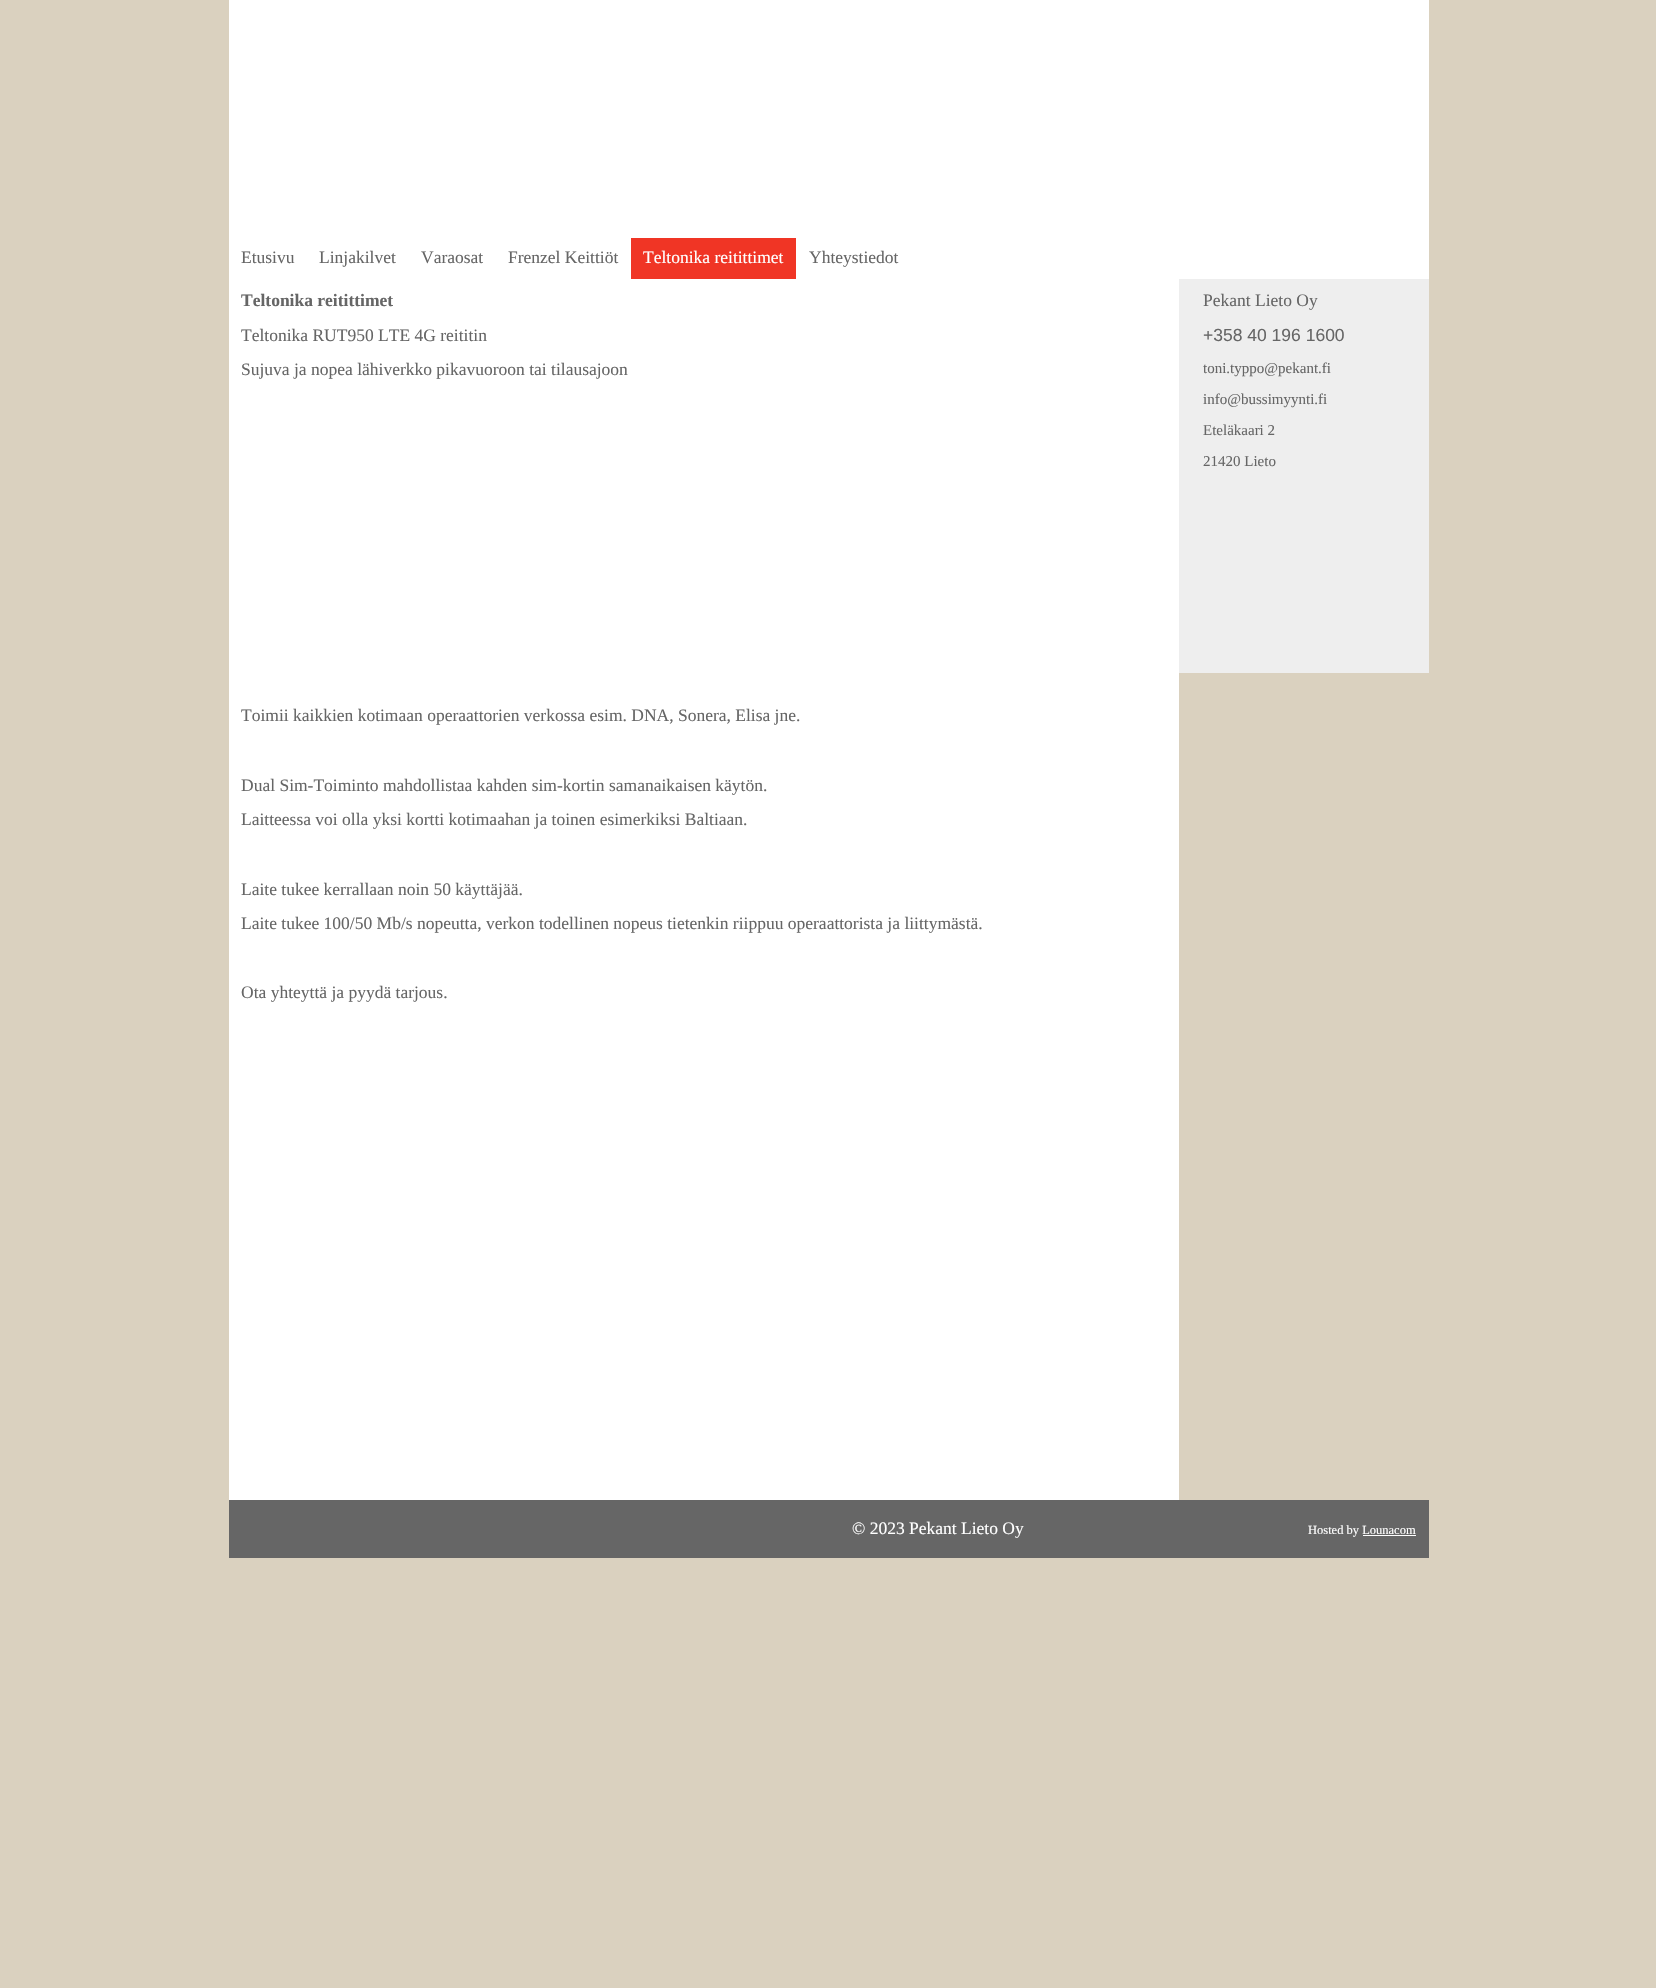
void draw(SkCanvas* canvas) {
  SkPaint paint;
  paint.setAntiAlias(true);
  auto face = [&](const char* family, int weight, float size, bool italic = false) {
    SkFontStyle style(weight, SkFontStyle::kNormal_Width,
      italic ? SkFontStyle::kItalic_Slant : SkFontStyle::kUpright_Slant);
    SkFont result(fontMgr->matchFamilyStyle(family, style), size);
    result.setSubpixel(true);
    return result;
  };
  canvas->clear(0xffdad1bf);
  {
    const struct { float x, y, w, h; SkColor color; } items[] = {
      {229, 0, 1200, 279, 0xffffffff},
      {631, 238, 165, 41, 0xfff03525},
      {229, 279, 950, 1221, 0xffffffff},
      {1179, 279, 250, 394, 0xffeeeeee},
      {229, 1500, 1200, 58, 0xff666666},
      {1363, 1535, 53, 1, 0xffffffff},
    };
    for (auto [x, y, w, h, color] : items) {
      paint.setColor(color);
      canvas->drawRect(SkRect::MakeXYWH(x, y, w, h), paint);
    }
  }
  auto f0 = face("Liberation Serif", 400, 17.5f);
  paint.setColor(0xff666666);
  {
    const struct { const char* s; float x, y; } items[] = {
      {"Etusivu", 241, 263},
      {"Linjakilvet", 319, 263},
      {"Varaosat", 421, 263},
      {"Frenzel Keittiöt", 508, 263},
    };
    for (auto [s, x, y] : items) {
      canvas->drawString(s, x, y, f0, paint);
    }
  }
  paint.setColor(0xffffffff);
  canvas->drawString("Teltonika reitittimet", 643, 263, f0, paint);
  paint.setColor(0xff666666);
  canvas->drawString("Yhteystiedot", 809, 263, f0, paint);
  canvas->save();
  canvas->clipRect(SkRect::MakeXYWH(241, 279, 925, 1221));
  auto f1 = face("Liberation Serif", 700, 17.5f);
  canvas->drawString("Teltonika reitittimet", 241, 306, f1, paint);
  canvas->restore();
  {
    const struct { const char* s; float x, y; } items[] = {
      {"Teltonika RUT950 LTE 4G reititin", 241, 341},
      {"Sujuva ja nopea lähiverkko pikavuoroon tai tilausajoon", 241, 375},
      {"Toimii kaikkien kotimaan operaattorien verkossa esim. DNA, Sonera, Elisa jne.", 241, 721},
      {"Dual Sim-Toiminto mahdollistaa kahden sim-kortin samanaikaisen käytön.", 241, 791},
      {"Laitteessa voi olla yksi kortti kotimaahan ja toinen esimerkiksi Baltiaan.", 241, 825},
      {"Laite tukee kerrallaan noin 50 käyttäjää.", 241, 895},
      {"Laite tukee 100/50 Mb/s nopeutta, verkon todellinen nopeus tietenkin riippuu operaattorista ja liittymästä.", 241, 929},
      {"Ota yhteyttä ja pyydä tarjous.", 241, 998},
      {"Pekant Lieto Oy", 1203, 306},
    };
    for (auto [s, x, y] : items) {
      canvas->drawString(s, x, y, f0, paint);
    }
  }
  auto f2 = face("Liberation Sans", 400, 17.5f);
  canvas->drawString("+358 40 196 1600", 1203, 341, f2, paint);
  auto f3 = face("Liberation Serif", 400, 15);
  {
    const struct { const char* s; float x, y; } items[] = {
      {"toni.typpo@pekant.fi", 1203, 373},
      {"info@bussimyynti.fi", 1203, 404},
      {"Eteläkaari 2", 1203, 435},
      {"21420 Lieto", 1203, 466},
    };
    for (auto [s, x, y] : items) {
      canvas->drawString(s, x, y, f3, paint);
    }
  }
  paint.setColor(0xffffffff);
  canvas->drawString("© 2023 Pekant Lieto Oy", 852, 1534, f0, paint);
  auto f4 = face("Liberation Serif", 400, 12.5f);
  canvas->drawString("Hosted by Lounacom", 1308, 1534, f4, paint);
}
